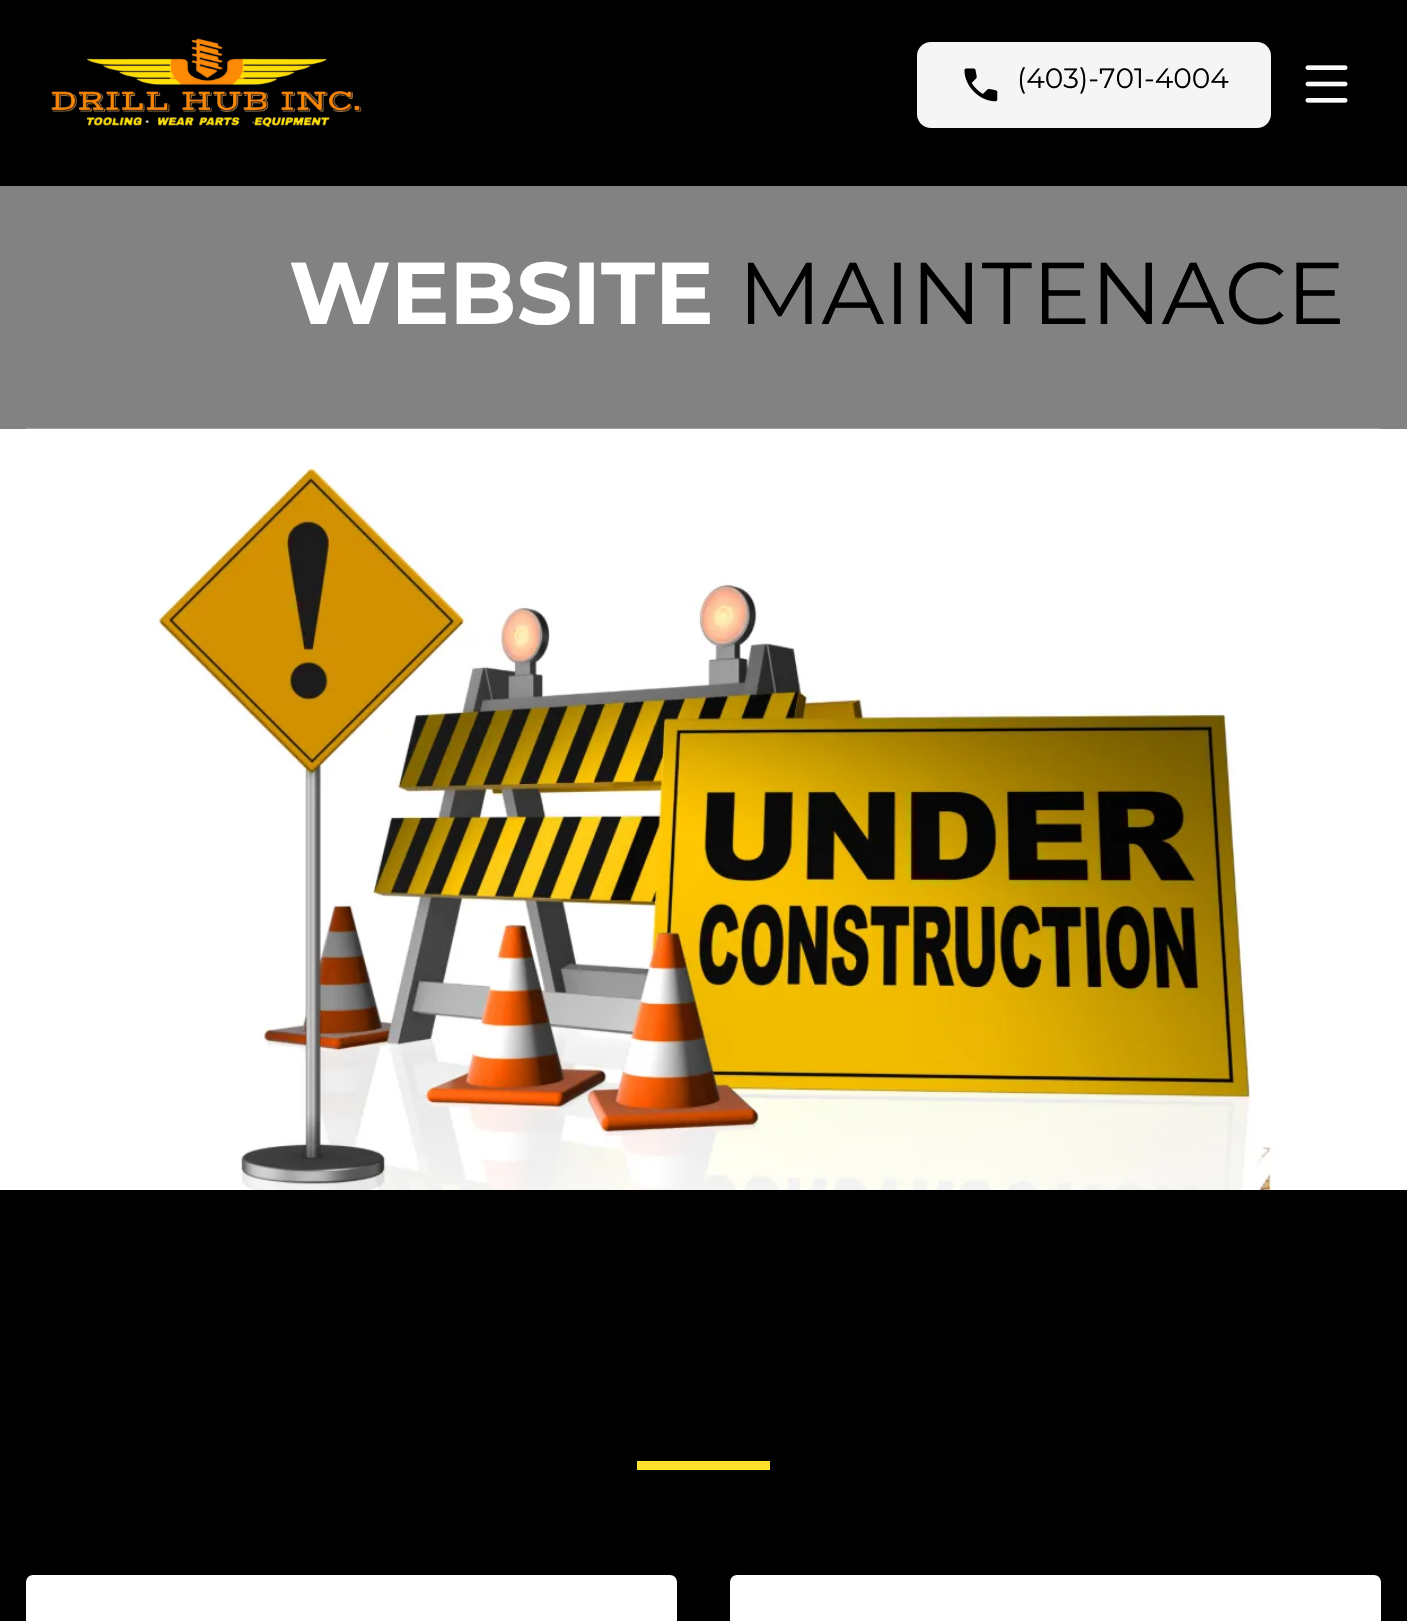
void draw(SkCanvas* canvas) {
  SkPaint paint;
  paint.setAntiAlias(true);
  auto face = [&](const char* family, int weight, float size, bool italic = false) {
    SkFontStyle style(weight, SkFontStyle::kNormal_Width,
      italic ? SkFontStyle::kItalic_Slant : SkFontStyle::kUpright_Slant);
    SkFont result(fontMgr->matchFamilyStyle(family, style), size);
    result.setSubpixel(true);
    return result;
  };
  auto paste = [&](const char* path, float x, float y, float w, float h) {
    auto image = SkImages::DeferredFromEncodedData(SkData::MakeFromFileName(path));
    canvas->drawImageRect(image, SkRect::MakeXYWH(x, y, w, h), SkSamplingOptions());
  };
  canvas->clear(0xffffffff);
  paint.setColor(0xff000000);
  canvas->drawRect(SkRect::MakeXYWH(0, 0, 1407, 186), paint);
  paste("img/1.png", 51, 38, 311, 90);
  paint.setColor(0xfff5f5f5);
  canvas->drawRoundRect(SkRect::MakeXYWH(917, 42, 354, 86), 14, 14, paint);
  paste("img/2.png", 964, 68, 34, 34);
  paste("img/3.png", 1305, 65, 43, 38);
  paint.setColor(0xff828282);
  canvas->drawRect(SkRect::MakeXYWH(0, 186, 1407, 243), paint);
  paste("img/4.png", 26, 428, 1355, 762);
  paint.setColor(0xff000000);
  canvas->drawRect(SkRect::MakeXYWH(0, 1190, 1407, 431), paint);
  paint.setColor(0xffffe02d);
  canvas->drawRect(SkRect::MakeXYWH(637, 1461, 133, 9), paint);
  paint.setColor(0xffffffff);
  canvas->drawRoundRect(SkRect::MakeXYWH(26, 1575, 651, 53), 7, 7, paint);
  canvas->drawRoundRect(SkRect::MakeXYWH(730, 1575, 651, 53), 7, 7, paint);
  auto f0 = face("Montserrat", 400, 28);
  paint.setColor(0xff000000);
  canvas->drawString("(403)-701-4004", 1017, 88, f0, paint);
  auto f1 = face("Montserrat", 700, 87.5f);
  paint.setColor(0xffffffff);
  canvas->drawString("WEBSITE", 289, 324, f1, paint);
  auto f2 = face("Montserrat", 400, 87.5f);
  paint.setColor(0xff000000);
  canvas->drawString("MAINTENACE", 738, 324, f2, paint);
}
